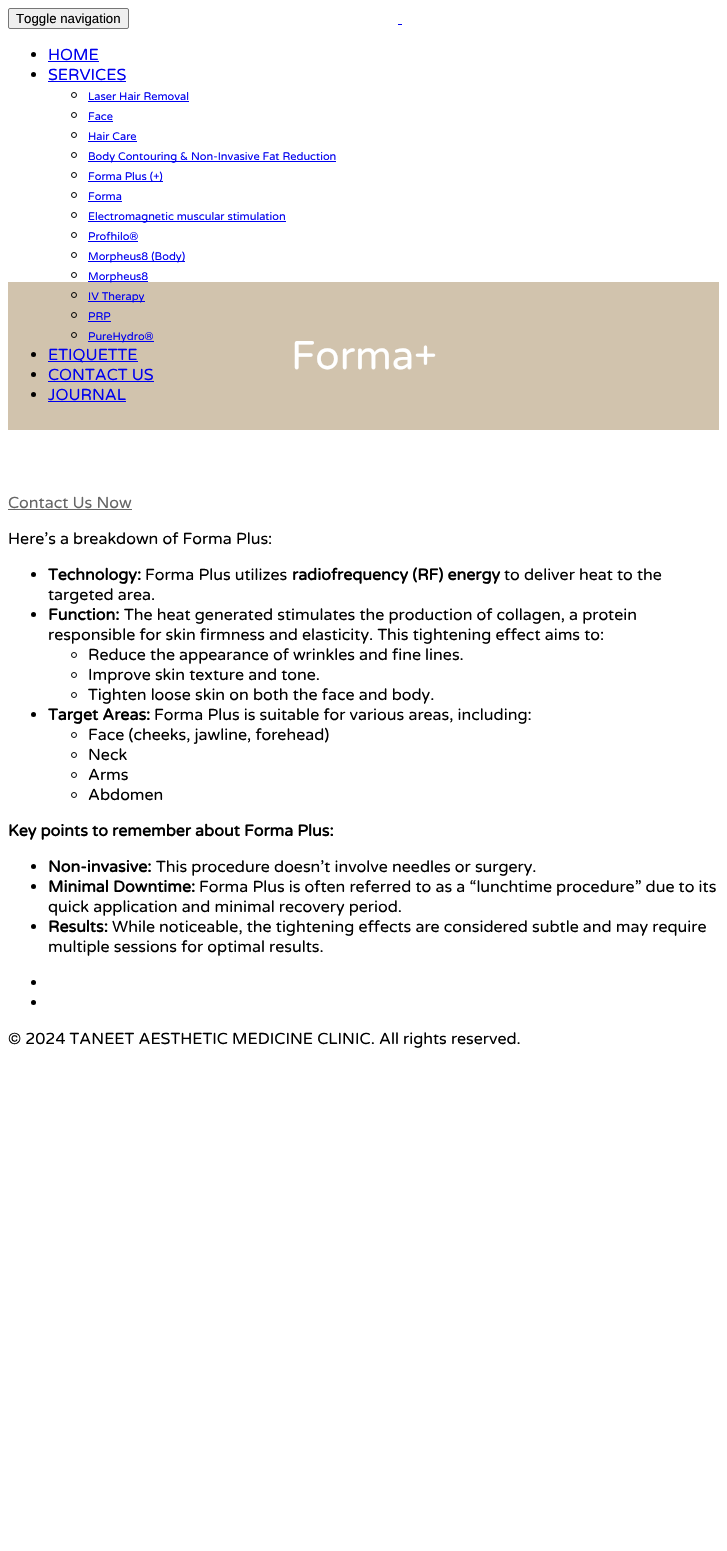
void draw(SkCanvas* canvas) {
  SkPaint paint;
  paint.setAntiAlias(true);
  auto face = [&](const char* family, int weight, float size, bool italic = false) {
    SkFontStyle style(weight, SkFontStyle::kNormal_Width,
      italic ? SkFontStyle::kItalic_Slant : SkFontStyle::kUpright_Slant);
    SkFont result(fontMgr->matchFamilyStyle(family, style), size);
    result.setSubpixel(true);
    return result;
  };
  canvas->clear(0xffffffff);
  paint.setColor(0xffefefef);
  canvas->drawRoundRect(SkRect::MakeXYWH(8.5f, 8.5f, 120, 20), 1.5f, 1.5f, paint);
  paint.setStroke(true);
  paint.setStrokeWidth(1);
  paint.setColor(0xff767676);
  canvas->drawRoundRect(SkRect::MakeXYWH(8.5f, 8.5f, 120, 20), 1.5f, 1.5f, paint);
  paint.setStroke(false);
  paint.setColor(0xff0000ee);
  canvas->drawRect(SkRect::MakeXYWH(398, 24, 4, 1), paint);
  paint.setColor(0xff000000);
  canvas->drawCircle(33.5f, 54.5f, 2.5f, paint);
  paint.setColor(0xff0000ee);
  canvas->drawRect(SkRect::MakeXYWH(48, 61, 51, 1), paint);
  paint.setColor(0xff000000);
  canvas->drawCircle(33.5f, 74.5f, 2.5f, paint);
  paint.setColor(0xff0000ee);
  canvas->drawRect(SkRect::MakeXYWH(48, 81, 78, 1), paint);
  paint.setStroke(true);
  paint.setColor(0xff000000);
  canvas->drawCircle(74, 95, 2.5f, paint);
  paint.setStroke(false);
  paint.setColor(0xff0000ee);
  canvas->drawRect(SkRect::MakeXYWH(88, 101, 101, 1), paint);
  paint.setStroke(true);
  paint.setColor(0xff000000);
  canvas->drawCircle(74, 115, 2.5f, paint);
  paint.setStroke(false);
  paint.setColor(0xff0000ee);
  canvas->drawRect(SkRect::MakeXYWH(88, 121, 25, 1), paint);
  paint.setStroke(true);
  paint.setColor(0xff000000);
  canvas->drawCircle(74, 135, 2.5f, paint);
  paint.setStroke(false);
  paint.setColor(0xff0000ee);
  canvas->drawRect(SkRect::MakeXYWH(88, 141, 49, 1), paint);
  paint.setStroke(true);
  paint.setColor(0xff000000);
  canvas->drawCircle(74, 155, 2.5f, paint);
  paint.setStroke(false);
  paint.setColor(0xff0000ee);
  canvas->drawRect(SkRect::MakeXYWH(88, 161, 248, 1), paint);
  paint.setStroke(true);
  paint.setColor(0xff000000);
  canvas->drawCircle(74, 175, 2.5f, paint);
  paint.setStroke(false);
  paint.setColor(0xff0000ee);
  canvas->drawRect(SkRect::MakeXYWH(88, 181, 75, 1), paint);
  paint.setStroke(true);
  paint.setColor(0xff000000);
  canvas->drawCircle(74, 195, 2.5f, paint);
  paint.setStroke(false);
  paint.setColor(0xff0000ee);
  canvas->drawRect(SkRect::MakeXYWH(88, 201, 34, 1), paint);
  paint.setStroke(true);
  paint.setColor(0xff000000);
  canvas->drawCircle(74, 215, 2.5f, paint);
  paint.setStroke(false);
  paint.setColor(0xff0000ee);
  canvas->drawRect(SkRect::MakeXYWH(88, 221, 198, 1), paint);
  paint.setStroke(true);
  paint.setColor(0xff000000);
  canvas->drawCircle(74, 235, 2.5f, paint);
  paint.setStroke(false);
  paint.setColor(0xff0000ee);
  canvas->drawRect(SkRect::MakeXYWH(88, 241, 50, 1), paint);
  paint.setStroke(true);
  paint.setColor(0xff000000);
  canvas->drawCircle(74, 255, 2.5f, paint);
  paint.setStroke(false);
  paint.setColor(0xff0000ee);
  canvas->drawRect(SkRect::MakeXYWH(88, 261, 97, 1), paint);
  paint.setStroke(true);
  paint.setColor(0xff000000);
  canvas->drawCircle(74, 275, 2.5f, paint);
  paint.setStroke(false);
  paint.setColor(0xff0000ee);
  canvas->drawRect(SkRect::MakeXYWH(88, 281, 60, 1), paint);
  paint.setColor(0xffd1c3ad);
  canvas->drawRect(SkRect::MakeXYWH(8, 282, 711, 148), paint);
  paint.setStroke(true);
  paint.setColor(0xff000000);
  canvas->drawCircle(74, 295, 2.5f, paint);
  paint.setStroke(false);
  paint.setColor(0xff0000ee);
  canvas->drawRect(SkRect::MakeXYWH(88, 301, 57, 1), paint);
  paint.setStroke(true);
  paint.setColor(0xff000000);
  canvas->drawCircle(74, 315, 2.5f, paint);
  paint.setStroke(false);
  paint.setColor(0xff0000ee);
  canvas->drawRect(SkRect::MakeXYWH(88, 321, 23, 1), paint);
  paint.setStroke(true);
  paint.setColor(0xff000000);
  canvas->drawCircle(74, 335, 2.5f, paint);
  paint.setStroke(false);
  paint.setColor(0xff0000ee);
  canvas->drawRect(SkRect::MakeXYWH(88, 341, 66, 1), paint);
  paint.setColor(0xff000000);
  canvas->drawCircle(33.5f, 354.5f, 2.5f, paint);
  paint.setColor(0xff0000ee);
  canvas->drawRect(SkRect::MakeXYWH(48, 361, 90, 1), paint);
  paint.setColor(0xff000000);
  canvas->drawCircle(33.5f, 374.5f, 2.5f, paint);
  paint.setColor(0xff0000ee);
  canvas->drawRect(SkRect::MakeXYWH(48, 381, 106, 1), paint);
  paint.setColor(0xff000000);
  canvas->drawCircle(33.5f, 394.5f, 2.5f, paint);
  paint.setColor(0xff0000ee);
  canvas->drawRect(SkRect::MakeXYWH(48, 401, 78, 1), paint);
  paint.setColor(0xff666666);
  canvas->drawRect(SkRect::MakeXYWH(8, 509, 124, 1), paint);
  paint.setColor(0xff000000);
  canvas->drawCircle(33.5f, 574.5f, 2.5f, paint);
  canvas->drawCircle(33.5f, 614.5f, 2.5f, paint);
  paint.setStroke(true);
  canvas->drawCircle(74, 655, 2.5f, paint);
  canvas->drawCircle(74, 675, 2.5f, paint);
  canvas->drawCircle(74, 695, 2.5f, paint);
  paint.setStroke(false);
  canvas->drawCircle(33.5f, 714.5f, 2.5f, paint);
  paint.setStroke(true);
  canvas->drawCircle(74, 735, 2.5f, paint);
  canvas->drawCircle(74, 755, 2.5f, paint);
  canvas->drawCircle(74, 775, 2.5f, paint);
  canvas->drawCircle(74, 795, 2.5f, paint);
  paint.setStroke(false);
  canvas->drawCircle(33.5f, 866.5f, 2.5f, paint);
  canvas->drawCircle(33.5f, 886.5f, 2.5f, paint);
  canvas->drawCircle(33.5f, 926.5f, 2.5f, paint);
  canvas->drawCircle(33.5f, 982.5f, 2.5f, paint);
  canvas->drawCircle(33.5f, 1002.5f, 2.5f, paint);
  auto f0 = face("Liberation Sans", 400, 13.25f);
  canvas->drawString("Toggle navigation", 16, 23, f0, paint);
  auto f1 = face("Varela Round", 400, 16);
  paint.setColor(0xff0000ee);
  canvas->drawString("HOME", 48, 60, f1, paint);
  canvas->drawString("SERVICES", 48, 80, f1, paint);
  auto f2 = face("Varela Round", 400, 11);
  {
    const struct { const char* s; float x, y; } items[] = {
      {"Laser Hair Removal", 88, 100},
      {"Face", 88, 120},
      {"Hair Care", 88, 140},
      {"Body Contouring & Non-Invasive Fat Reduction", 88, 160},
      {"Forma Plus (+)", 88, 180},
      {"Forma", 88, 200},
      {"Electromagnetic muscular stimulation", 88, 220},
      {"Profhilo®", 88, 240},
      {"Morpheus8 (Body)", 88, 260},
      {"Morpheus8", 88, 280},
      {"IV Therapy", 88, 300},
      {"PRP", 88, 320},
      {"PureHydro®", 88, 340},
    };
    for (auto [s, x, y] : items) {
      canvas->drawString(s, x, y, f2, paint);
    }
  }
  {
    const struct { const char* s; float x, y; } items[] = {
      {"ETIQUETTE", 48, 360},
      {"CONTACT US", 48, 380},
      {"JOURNAL", 48, 400},
    };
    for (auto [s, x, y] : items) {
      canvas->drawString(s, x, y, f1, paint);
    }
  }
  auto f3 = face("Varela Round", 400, 40);
  paint.setColor(0xffffffff);
  canvas->drawString("Forma+", 291, 369, f3, paint);
  paint.setColor(0xff666666);
  canvas->drawString("Contact Us Now", 8, 508, f1, paint);
  paint.setColor(0xff000000);
  canvas->drawString("Here’s a breakdown of Forma Plus:", 8, 544, f1, paint);
  auto f4 = face("Varela Round", 700, 16);
  canvas->drawString("Technology:", 48, 580, f4, paint);
  canvas->drawString("Forma Plus utilizes", 145, 580, f1, paint);
  canvas->drawString("radiofrequency (RF) energy", 292, 580, f4, paint);
  canvas->drawString("to deliver heat to the", 504, 580, f1, paint);
  canvas->drawString("targeted area.", 48, 600, f1, paint);
  canvas->drawString("Function:", 48, 620, f4, paint);
  {
    const struct { const char* s; float x, y; } items[] = {
      {"The heat generated stimulates the production of collagen, a protein", 124, 620},
      {"responsible for skin firmness and elasticity. This tightening effect aims to:", 48, 640},
      {"Reduce the appearance of wrinkles and fine lines.", 88, 660},
      {"Improve skin texture and tone.", 88, 680},
      {"Tighten loose skin on both the face and body.", 88, 700},
    };
    for (auto [s, x, y] : items) {
      canvas->drawString(s, x, y, f1, paint);
    }
  }
  canvas->drawString("Target Areas:", 48, 720, f4, paint);
  {
    const struct { const char* s; float x, y; } items[] = {
      {"Forma Plus is suitable for various areas, including:", 154, 720},
      {"Face (cheeks, jawline, forehead)", 88, 740},
      {"Neck", 88, 760},
      {"Arms", 88, 780},
      {"Abdomen", 88, 800},
    };
    for (auto [s, x, y] : items) {
      canvas->drawString(s, x, y, f1, paint);
    }
  }
  canvas->drawString("Key points to remember about Forma Plus:", 8, 836, f4, paint);
  canvas->drawString("Non-invasive:", 48, 872, f4, paint);
  canvas->drawString("This procedure doesn’t involve needles or surgery.", 156, 872, f1, paint);
  canvas->drawString("Minimal Downtime:", 48, 892, f4, paint);
  canvas->drawString("Forma Plus is often referred to as a “lunchtime procedure” due to its", 199, 892, f1, paint);
  canvas->drawString("quick application and minimal recovery period.", 48, 912, f1, paint);
  canvas->drawString("Results:", 48, 932, f4, paint);
  {
    const struct { const char* s; float x, y; } items[] = {
      {"While noticeable, the tightening effects are considered subtle and may require", 112, 932},
      {"multiple sessions for optimal results.", 48, 952},
      {"© 2024 TANEET AESTHETIC MEDICINE CLINIC. All rights reserved.", 8, 1044},
    };
    for (auto [s, x, y] : items) {
      canvas->drawString(s, x, y, f1, paint);
    }
  }
}
